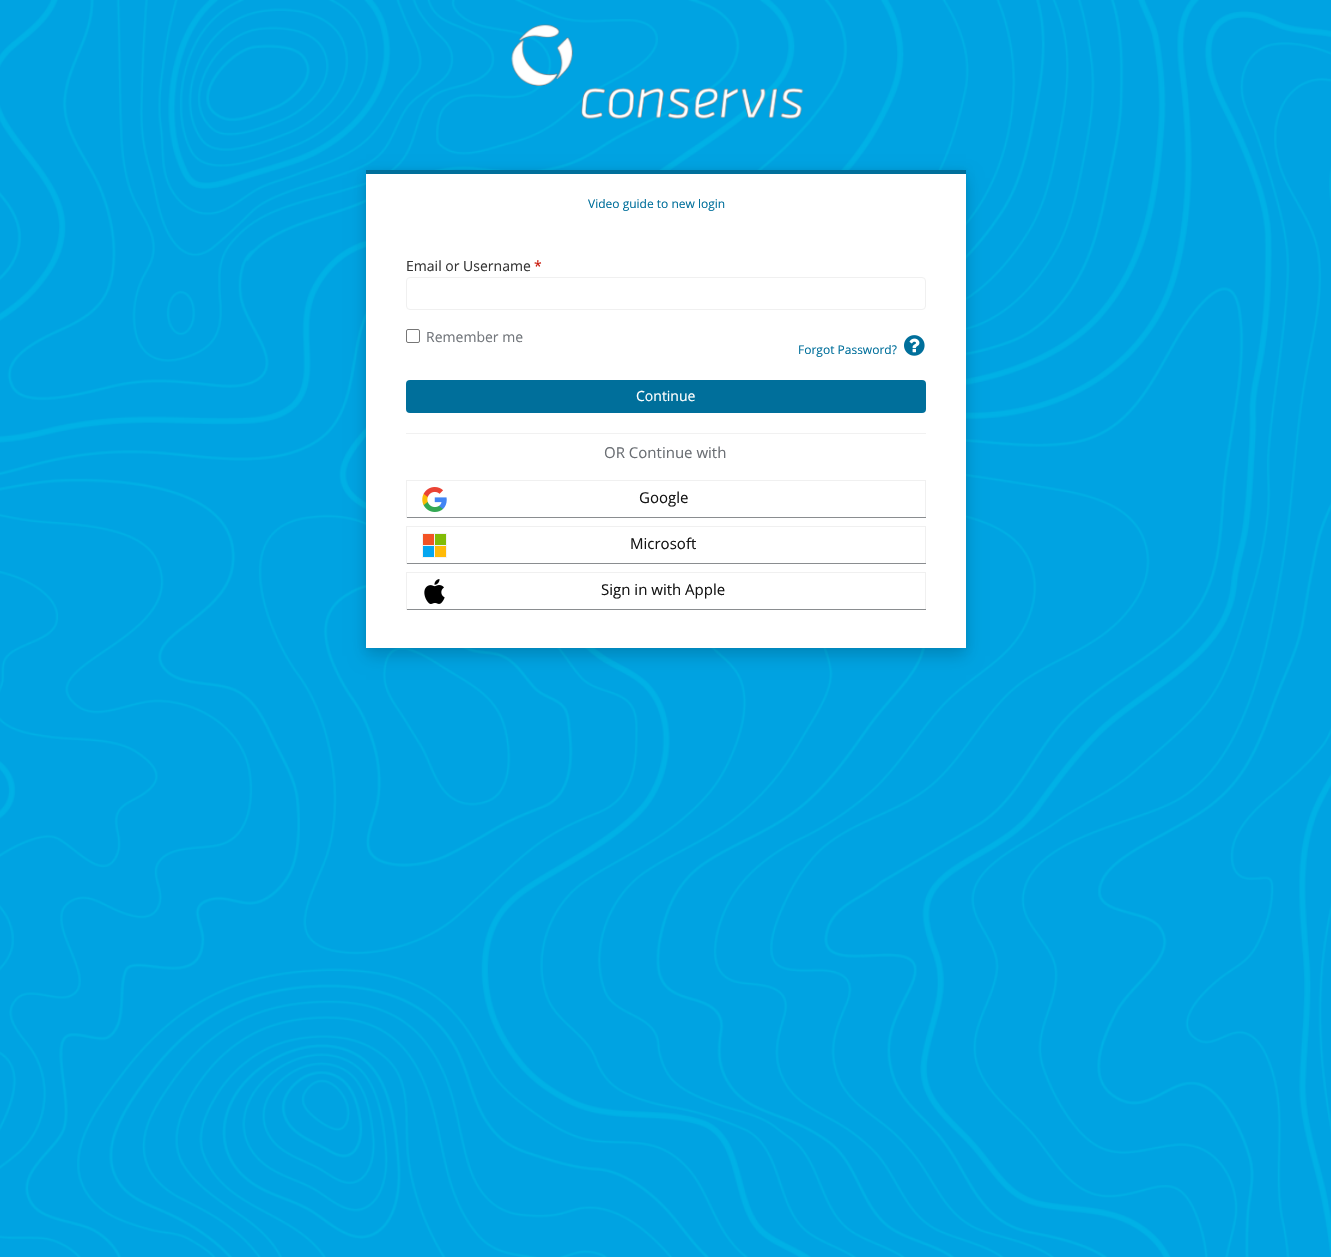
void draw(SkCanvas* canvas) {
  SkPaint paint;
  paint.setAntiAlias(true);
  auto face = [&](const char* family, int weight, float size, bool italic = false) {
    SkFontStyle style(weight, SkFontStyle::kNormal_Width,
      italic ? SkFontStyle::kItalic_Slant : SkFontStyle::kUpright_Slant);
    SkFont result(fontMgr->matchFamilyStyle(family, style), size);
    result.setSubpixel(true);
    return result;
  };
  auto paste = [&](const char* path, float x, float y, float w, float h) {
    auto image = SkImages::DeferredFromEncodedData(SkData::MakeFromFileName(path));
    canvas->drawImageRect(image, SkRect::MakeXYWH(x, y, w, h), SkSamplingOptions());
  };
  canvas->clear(0xffffffff);
  paste("img/1.png", 0, 0, 1331, 1257);
  paste("img/2.png", 511, 24, 293, 96);
  paint.setColor(0x14030303);
  paint.setMaskFilter(SkMaskFilter::MakeBlur(kNormal_SkBlurStyle, 3));
  canvas->drawRect(SkRect::MakeXYWH(366, 170, 600, 478), paint);
  paint.setMaskFilter(nullptr);
  paint.setColor(0x29030303);
  paint.setMaskFilter(SkMaskFilter::MakeBlur(kNormal_SkBlurStyle, 8));
  canvas->drawRect(SkRect::MakeXYWH(366, 178, 600, 478), paint);
  paint.setMaskFilter(nullptr);
  paint.setColor(0xffffffff);
  canvas->drawRect(SkRect::MakeXYWH(366, 174, 600, 474), paint);
  paint.setColor(0xff006f9b);
  canvas->drawRect(SkRect::MakeXYWH(366, 170, 600, 4), paint);
  paint.setStroke(true);
  paint.setStrokeWidth(1);
  paint.setColor(0xfff0f0f0);
  canvas->drawRoundRect(SkRect::MakeXYWH(406.5f, 277.5f, 519, 32), 3.5f, 3.5f, paint);
  paint.setColor(0xff767676);
  canvas->drawRoundRect(SkRect::MakeXYWH(406.5f, 329.5f, 13, 13), 1.5f, 1.5f, paint);
  paste("img/3.png", 904, 335, 21, 21);
  paint.setStroke(false);
  paint.setColor(0xff006f9b);
  canvas->drawRoundRect(SkRect::MakeXYWH(406, 380, 520, 33), 4, 4, paint);
  {
    const struct { float x, y, w, h; SkColor color; } items[] = {
      {406, 433, 520, 1, 0xfff1f1f1},
      {406, 480, 520, 1, 0xfff0f0f0},
      {925, 480, 1, 38, 0xfff0f0f0},
      {406, 517, 520, 1, 0xff8a8d90},
      {406, 480, 1, 38, 0xfff0f0f0},
    };
    for (auto [x, y, w, h, color] : items) {
      paint.setColor(color);
      canvas->drawRect(SkRect::MakeXYWH(x, y, w, h), paint);
    }
  }
  paste("img/4.png", 422, 487, 25, 25);
  {
    const struct { float x, y, w, h; SkColor color; } items[] = {
      {406, 526, 520, 1, 0xfff0f0f0},
      {925, 526, 1, 38, 0xfff0f0f0},
      {406, 563, 520, 1, 0xff8a8d90},
      {406, 526, 1, 38, 0xfff0f0f0},
      {422, 533, 25, 25, 0xfff3f3f3},
      {423, 534, 11, 11, 0xfff35325},
      {435, 534, 11, 11, 0xff81bc06},
      {423, 546, 11, 11, 0xff05a6f0},
      {435, 546, 11, 11, 0xffffba08},
      {406, 572, 520, 1, 0xfff0f0f0},
      {925, 572, 1, 38, 0xfff0f0f0},
      {406, 609, 520, 1, 0xff8a8d90},
      {406, 572, 1, 38, 0xfff0f0f0},
    };
    for (auto [x, y, w, h, color] : items) {
      paint.setColor(color);
      canvas->drawRect(SkRect::MakeXYWH(x, y, w, h), paint);
    }
  }
  paste("img/5.png", 424, 579, 21, 25);
  auto f0 = face("Open Sans", 400, 12);
  paint.setColor(0xff006f9b);
  canvas->drawString("Video guide to new login", 588, 208, f0, paint);
  auto f1 = face("Open Sans", 400, 14);
  paint.setColor(0xff363636);
  canvas->drawString("Email or Username", 406, 271, f1, paint);
  paint.setColor(0xffc9190b);
  canvas->drawString("*", 534, 271, f1, paint);
  paint.setColor(0xff72767b);
  canvas->drawString("Remember me", 426, 342, f1, paint);
  paint.setColor(0xff006f9b);
  canvas->drawString("Forgot Password?", 798, 354, f0, paint);
  paint.setColor(0xffffffff);
  canvas->drawString("Continue", 636, 401, f1, paint);
  auto f2 = face("Open Sans", 400, 15);
  paint.setColor(0xff6a6e73);
  canvas->drawString("OR Continue with", 604, 458, f2, paint);
  paint.setColor(0xff151515);
  {
    const struct { const char* s; float x, y; } items[] = {
      {"Google", 639, 503},
      {"Microsoft", 630, 549},
      {"Sign in with Apple", 601, 595},
    };
    for (auto [s, x, y] : items) {
      canvas->drawString(s, x, y, f2, paint);
    }
  }
}
